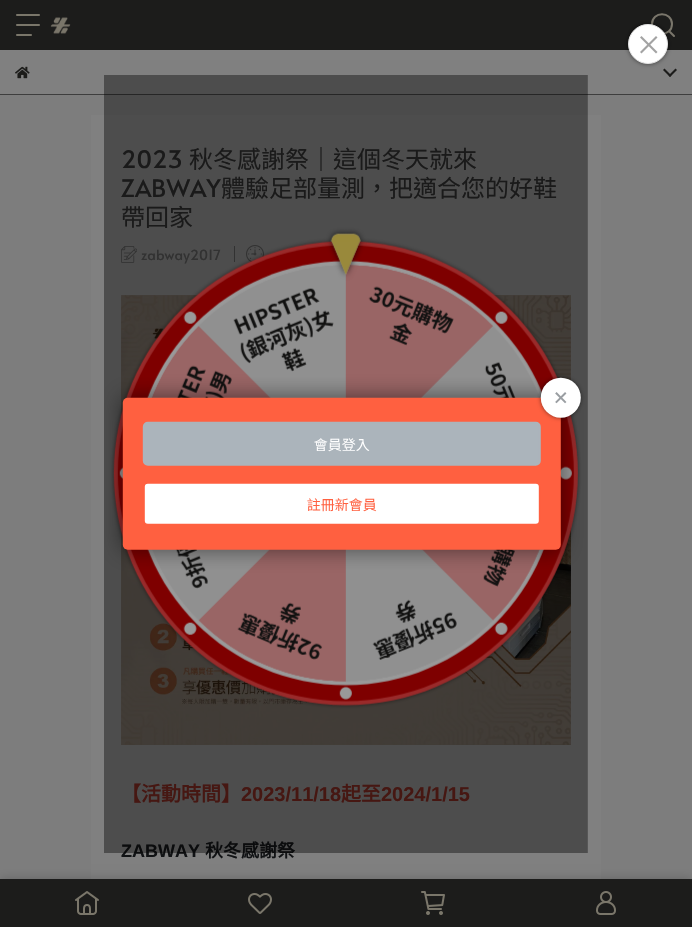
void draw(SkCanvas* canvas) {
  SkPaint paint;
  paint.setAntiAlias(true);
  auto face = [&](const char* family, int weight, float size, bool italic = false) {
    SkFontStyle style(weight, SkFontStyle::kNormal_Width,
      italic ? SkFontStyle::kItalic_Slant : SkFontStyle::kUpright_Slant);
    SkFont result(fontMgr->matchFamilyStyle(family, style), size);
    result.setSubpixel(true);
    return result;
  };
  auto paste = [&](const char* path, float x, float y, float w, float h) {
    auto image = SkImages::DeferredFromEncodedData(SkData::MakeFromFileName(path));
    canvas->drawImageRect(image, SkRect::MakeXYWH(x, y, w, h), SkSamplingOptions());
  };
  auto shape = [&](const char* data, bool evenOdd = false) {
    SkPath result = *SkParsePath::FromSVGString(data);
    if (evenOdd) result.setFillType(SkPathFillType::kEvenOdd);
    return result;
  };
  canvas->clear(0xff808080);
  paint.setColor(0xff1c1c1b);
  canvas->drawRect(SkRect::MakeXYWH(0, 0, 692, 50), paint);
  paste("img/1.png", 16, 14, 24, 22);
  paste("img/2.png", 50, 17, 21, 17);
  paint.setStroke(true);
  paint.setStrokeWidth(2);
  paint.setStrokeCap(SkPaint::kRound_Cap);
  paint.setStrokeJoin(SkPaint::kRound_Join);
  paint.setColor(0xff7a766b);
  canvas->drawPath(shape("M672 24C672 37 652 37 652 24C652 11 672 11 672 24ZM670 32L674 36"), paint);
  paint.setStroke(false);
  paint.setColor(0xff7d7d7d);
  canvas->drawRect(SkRect::MakeXYWH(0, 95, 692, 784), paint);
  paint.setColor(0xff808080);
  canvas->drawRect(SkRect::MakeXYWH(91, 115, 510, 764), paint);
  paint.setColor(0x33000000);
  paint.setMaskFilter(SkMaskFilter::MakeBlur(kNormal_SkBlurStyle, 5));
  canvas->drawRect(SkRect::MakeXYWH(0, 879, 692, 48), paint);
  paint.setMaskFilter(nullptr);
  paint.setColor(0xff1c1c1b);
  canvas->drawRect(SkRect::MakeXYWH(0, 879, 692, 48), paint);
  paste("img/3.png", 75, 891, 24, 24);
  paste("img/4.png", 248, 893, 24, 21);
  paste("img/5.png", 421, 891, 24, 24);
  paste("img/6.png", 596, 891, 20, 24);
  canvas->drawPath(shape("M668.5 75.5L675.5 68.5L677 70L670 77Z"), paint);
  canvas->drawPath(shape("M663 70L664.5 68.5L671.5 75.5L670 77Z"), paint);
  paint.setColor(0x80000000);
  paint.setMaskFilter(SkMaskFilter::MakeBlur(kNormal_SkBlurStyle, 2));
  canvas->drawRoundRect(SkRect::MakeXYWH(628, 24, 40, 40), 20, 20, paint);
  paint.setMaskFilter(nullptr);
  paint.setColor(0xffffffff);
  canvas->drawCircle(648, 44, 19.5f, paint);
  paint.setStroke(true);
  paint.setStrokeWidth(1);
  paint.setStrokeCap(SkPaint::kButt_Cap);
  paint.setStrokeJoin(SkPaint::kMiter_Join);
  paint.setColor(0xffe2e2e2);
  canvas->drawCircle(648, 44, 19.5f, paint);
  paint.setStroke(false);
  paint.setColor(0xffa3a3a3);
  canvas->drawPath(shape("M641.5 36L657.5 52L656 53.5L640 37.5Z"), paint);
  canvas->drawPath(shape("M640 52L656 36L657.5 37.5L641.5 53.5Z"), paint);
  paint.setColor(0xff3e3e3e);
  canvas->drawRect(SkRect::MakeXYWH(0, 94, 692, 1), paint);
  paste("img/8.png", 15, 66, 15, 13);
  paste("img/9.png", 121, 246, 16, 17);
  paint.setColor(0xff525252);
  canvas->drawRect(SkRect::MakeXYWH(234, 246, 1, 16), paint);
  paste("img/10.png", 246, 245, 18, 17);
  paste("img/11.png", 121, 295, 450, 450);
  auto f0 = face("Alata", 400, 24);
  paint.setColor(0xff2b2b2b);
  canvas->drawString("2023", 121, 168, f0, paint);
  auto f1 = face("Noto Sans CJK TC", 400, 24);
  canvas->drawString("秋冬感謝祭｜這個冬天就來", 189, 168, f1, paint);
  canvas->drawString("ZABWAY", 121, 197, f0, paint);
  canvas->drawString("體驗足部量測，把適合您的好鞋", 221, 197, f1, paint);
  canvas->drawString("帶回家", 121, 226, f1, paint);
  auto f2 = face("Alata", 400, 14);
  paint.setColor(0xff525252);
  canvas->drawString("zabway2017", 141, 260, f2, paint);
  auto f3 = face("Noto Sans CJK TC", 700, 20);
  paint.setColor(0xff74261e);
  canvas->drawString("【活動時間】", 121, 801, f3, paint);
  auto f4 = face("Liberation Sans", 700, 20);
  canvas->drawString("2023/11/18", 241, 801, f4, paint);
  canvas->drawString("起至", 341, 801, f3, paint);
  canvas->drawString("2024/1/15", 381, 801, f4, paint);
  auto f5 = face("Liberation Sans", 700, 18);
  paint.setColor(0xff111315);
  canvas->drawString("ZABWAY", 121, 857, f5, paint);
  auto f6 = face("Noto Sans CJK TC", 700, 18);
  canvas->drawString("秋冬感謝祭", 205, 857, f6, paint);
  paste("img/7.png", 104, 75, 484, 778);
}
